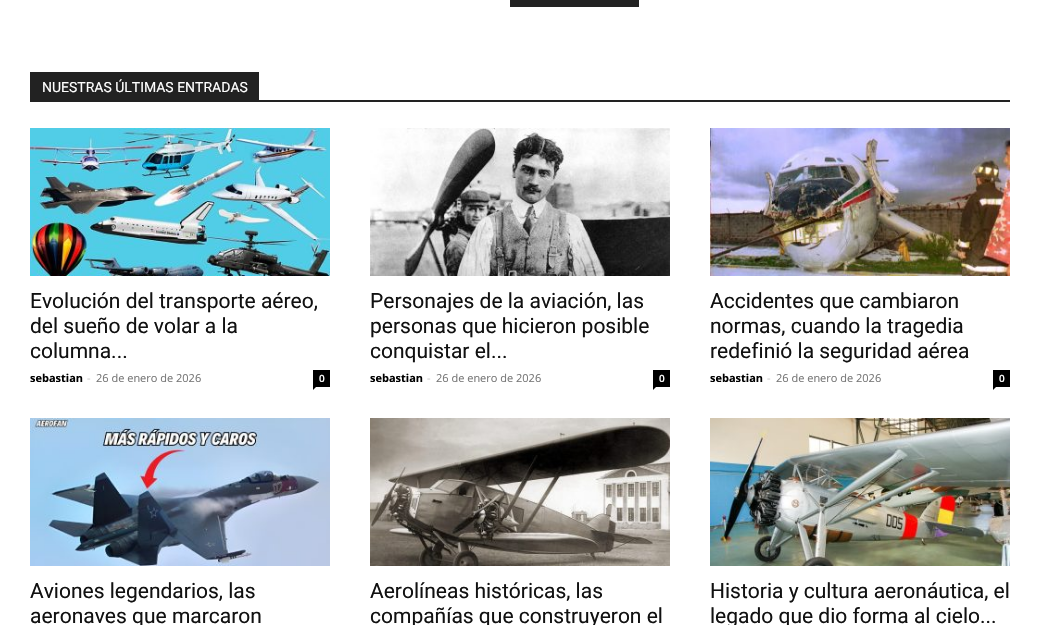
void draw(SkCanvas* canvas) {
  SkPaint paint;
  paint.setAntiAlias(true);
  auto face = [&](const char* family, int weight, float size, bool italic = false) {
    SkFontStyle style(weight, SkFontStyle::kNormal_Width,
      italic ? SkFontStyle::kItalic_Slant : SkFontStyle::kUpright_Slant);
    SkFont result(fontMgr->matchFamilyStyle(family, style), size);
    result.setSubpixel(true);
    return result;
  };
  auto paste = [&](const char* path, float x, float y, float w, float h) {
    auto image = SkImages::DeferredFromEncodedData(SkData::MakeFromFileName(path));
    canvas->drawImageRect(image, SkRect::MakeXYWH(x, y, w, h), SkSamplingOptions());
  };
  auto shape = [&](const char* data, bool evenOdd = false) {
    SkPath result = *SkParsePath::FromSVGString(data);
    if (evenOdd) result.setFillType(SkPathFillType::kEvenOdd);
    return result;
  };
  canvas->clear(0xffffffff);
  {
    const struct { float x, y, w, h; SkColor color; } items[] = {
      {510, 0, 129, 7, 0xff222222},
      {30, 100, 980, 2, 0xff222222},
      {30, 72, 229, 28, 0xff222222},
    };
    for (auto [x, y, w, h, color] : items) {
      paint.setColor(color);
      canvas->drawRect(SkRect::MakeXYWH(x, y, w, h), paint);
    }
  }
  paste("img/1.png", 30, 128, 300, 148);
  paint.setColor(0xff000000);
  canvas->drawRect(SkRect::MakeXYWH(313, 370, 17, 17), paint);
  canvas->drawPath(shape("M313 387H316L313 390Z"), paint);
  paste("img/2.png", 370, 128, 300, 148);
  canvas->drawRect(SkRect::MakeXYWH(653, 370, 17, 17), paint);
  canvas->drawPath(shape("M653 387H656L653 390Z"), paint);
  paste("img/3.png", 710, 128, 300, 148);
  canvas->drawRect(SkRect::MakeXYWH(993, 370, 17, 17), paint);
  canvas->drawPath(shape("M993 387H996L993 390Z"), paint);
  paste("img/4.png", 30, 418, 300, 148);
  paste("img/5.png", 370, 418, 300, 148);
  paste("img/6.png", 710, 418, 300, 148);
  auto f0 = face("Roboto", 400, 14);
  paint.setColor(0xffffffff);
  canvas->drawString("NUESTRAS ÚLTIMAS ENTRADAS", 42, 92, f0, paint);
  auto f1 = face("Roboto", 400, 21);
  paint.setColor(0xff111111);
  {
    const struct { const char* s; float x, y; } items[] = {
      {"Evolución del transporte aéreo,", 30, 308},
      {"del sueño de volar a la", 30, 333},
      {"columna...", 30, 358},
    };
    for (auto [s, x, y] : items) {
      canvas->drawString(s, x, y, f1, paint);
    }
  }
  auto f2 = face("Open Sans", 700, 11);
  paint.setColor(0xff000000);
  canvas->drawString("sebastian", 30, 382, f2, paint);
  auto f3 = face("Open Sans", 400, 11);
  paint.setColor(0xffcccccc);
  canvas->drawString("-", 87, 382, f3, paint);
  paint.setColor(0xff767676);
  canvas->drawString("26 de enero de 2026", 96, 382, f3, paint);
  auto f4 = face("Open Sans", 600, 10);
  paint.setColor(0xffffffff);
  canvas->drawString("0", 319, 382, f4, paint);
  paint.setColor(0xff111111);
  {
    const struct { const char* s; float x, y; } items[] = {
      {"Personajes de la aviación, las", 370, 308},
      {"personas que hicieron posible", 370, 333},
      {"conquistar el...", 370, 358},
    };
    for (auto [s, x, y] : items) {
      canvas->drawString(s, x, y, f1, paint);
    }
  }
  paint.setColor(0xff000000);
  canvas->drawString("sebastian", 370, 382, f2, paint);
  paint.setColor(0xffcccccc);
  canvas->drawString("-", 427, 382, f3, paint);
  paint.setColor(0xff767676);
  canvas->drawString("26 de enero de 2026", 436, 382, f3, paint);
  paint.setColor(0xffffffff);
  canvas->drawString("0", 659, 382, f4, paint);
  paint.setColor(0xff111111);
  {
    const struct { const char* s; float x, y; } items[] = {
      {"Accidentes que cambiaron", 710, 308},
      {"normas, cuando la tragedia", 710, 333},
      {"redefinió la seguridad aérea", 710, 358},
    };
    for (auto [s, x, y] : items) {
      canvas->drawString(s, x, y, f1, paint);
    }
  }
  paint.setColor(0xff000000);
  canvas->drawString("sebastian", 710, 382, f2, paint);
  paint.setColor(0xffcccccc);
  canvas->drawString("-", 767, 382, f3, paint);
  paint.setColor(0xff767676);
  canvas->drawString("26 de enero de 2026", 776, 382, f3, paint);
  paint.setColor(0xffffffff);
  canvas->drawString("0", 999, 382, f4, paint);
  paint.setColor(0xff111111);
  {
    const struct { const char* s; float x, y; } items[] = {
      {"Aviones legendarios, las", 30, 598},
      {"aeronaves que marcaron", 30, 623},
      {"Aerolíneas históricas, las", 370, 598},
      {"compañías que construyeron el", 370, 623},
      {"Historia y cultura aeronáutica, el", 710, 598},
      {"legado que dio forma al cielo...", 710, 623},
    };
    for (auto [s, x, y] : items) {
      canvas->drawString(s, x, y, f1, paint);
    }
  }
}
